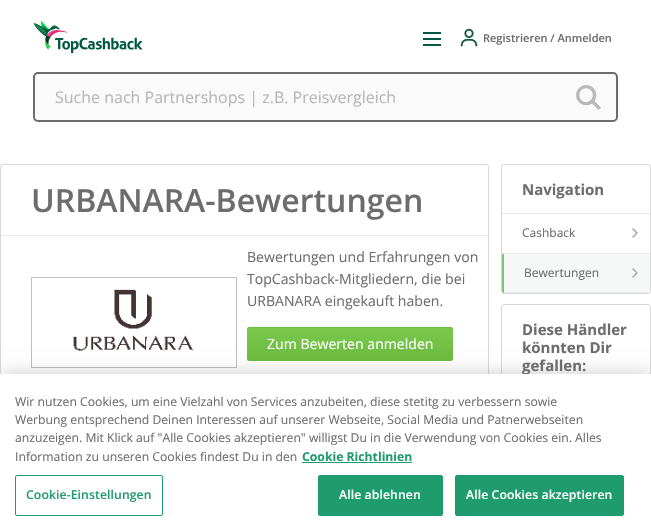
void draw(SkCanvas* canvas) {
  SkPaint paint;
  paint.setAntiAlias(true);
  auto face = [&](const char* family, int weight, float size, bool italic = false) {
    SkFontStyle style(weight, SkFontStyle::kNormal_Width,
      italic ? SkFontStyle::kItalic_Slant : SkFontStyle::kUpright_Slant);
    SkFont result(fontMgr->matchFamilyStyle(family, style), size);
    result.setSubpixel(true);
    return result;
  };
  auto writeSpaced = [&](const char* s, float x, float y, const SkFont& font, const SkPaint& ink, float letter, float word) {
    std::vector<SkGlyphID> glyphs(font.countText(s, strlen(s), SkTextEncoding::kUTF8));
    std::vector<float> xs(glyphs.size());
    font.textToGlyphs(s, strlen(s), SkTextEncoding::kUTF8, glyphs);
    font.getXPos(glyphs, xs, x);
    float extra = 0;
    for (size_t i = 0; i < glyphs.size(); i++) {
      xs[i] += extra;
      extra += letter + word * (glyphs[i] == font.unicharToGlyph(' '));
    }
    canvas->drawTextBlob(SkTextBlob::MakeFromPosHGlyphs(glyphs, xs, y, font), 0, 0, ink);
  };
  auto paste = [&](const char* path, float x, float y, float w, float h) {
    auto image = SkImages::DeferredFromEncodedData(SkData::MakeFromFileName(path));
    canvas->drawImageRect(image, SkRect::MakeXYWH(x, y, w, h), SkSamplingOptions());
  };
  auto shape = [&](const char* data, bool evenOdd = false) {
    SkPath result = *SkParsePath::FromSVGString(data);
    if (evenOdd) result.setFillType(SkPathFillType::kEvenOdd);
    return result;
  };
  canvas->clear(0xffffffff);
  paste("img/1.png", 33, 21, 110, 32);
  {
    const struct { float x, y, w, h; SkColor color; } items[] = {
      {423, 32, 18, 2, 0xff055942},
      {423, 38, 18, 2, 0xff055942},
      {423, 44, 18, 2, 0xff055942},
    };
    for (auto [x, y, w, h, color] : items) {
      paint.setColor(color);
      canvas->drawRect(SkRect::MakeXYWH(x, y, w, h), paint);
    }
  }
  paste("img/2.png", 460, 28, 18, 19);
  paint.setColor(0xfffafafa);
  canvas->drawRoundRect(SkRect::MakeXYWH(33, 72, 585, 50), 5, 5, paint);
  paste("img/3.png", 576, 85, 25, 25);
  paint.setStroke(true);
  paint.setStrokeWidth(2);
  paint.setColor(0xff6d6d6d);
  canvas->drawRoundRect(SkRect::MakeXYWH(34, 73, 583, 48), 4, 4, paint);
  paint.setStrokeWidth(1);
  paint.setColor(0xffd8d8d8);
  canvas->drawRoundRect(SkRect::MakeXYWH(0.5f, 164.5f, 488, 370), 2.5f, 2.5f, paint);
  paint.setStroke(false);
  paint.setColor(0xffe9eaeb);
  canvas->drawRect(SkRect::MakeXYWH(1, 235, 487, 1), paint);
  paint.setStroke(true);
  paint.setColor(0xffbfbfbf);
  canvas->drawRect(SkRect::MakeXYWH(31.5f, 277.5f, 205, 90), paint);
  paste("img/4.png", 73, 289, 121, 62);
  paint.setStroke(false);
  {
    const SkColor colors[] = {0xff6bba3e, 0xff7ac84d, 0xff6bba3e};
    const float stops[] = {0.01f, 0.03f, 1};
    const SkPoint ends[] = {{350, 327}, {350, 361}};
    paint.setShader(SkGradientShader::MakeLinear(ends, colors, stops, 3, SkTileMode::kClamp));
    paint.setAlpha(255);
  }
  canvas->drawRoundRect(SkRect::MakeXYWH(247, 327, 206, 34), 2, 2, paint);
  paint.setStroke(true);
  paint.setShader(nullptr);
  paint.setColor(0xffd8d8d8);
  canvas->drawRoundRect(SkRect::MakeXYWH(501.5f, 164.5f, 149, 129), 2.5f, 2.5f, paint);
  paint.setStroke(false);
  paint.setColor(0xffe9eaeb);
  canvas->drawRect(SkRect::MakeXYWH(502, 213, 148, 1), paint);
  paste("img/5.png", 632, 228, 6, 10);
  canvas->drawRect(SkRect::MakeXYWH(502, 253, 148, 1), paint);
  paint.setColor(0xfff6f7f7);
  canvas->drawPath(shape("M502 254H650V291C650 292 649 293 648 293H504C503 293 502 292 502 291Z"), paint);
  paint.setColor(0xff7cc576);
  canvas->drawPath(shape("M502 254H504V293C503 293 502 292 502 291Z"), paint);
  paste("img/6.png", 632, 268, 6, 10);
  paint.setColor(0xffe9eaeb);
  canvas->drawRect(SkRect::MakeXYWH(504, 292, 146, 1), paint);
  paint.setStroke(true);
  paint.setColor(0xffd8d8d8);
  canvas->drawRoundRect(SkRect::MakeXYWH(501.5f, 304.5f, 149, 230), 2.5f, 2.5f, paint);
  paint.setStroke(false);
  paint.setColor(0x33000000);
  paint.setMaskFilter(SkMaskFilter::MakeBlur(kNormal_SkBlurStyle, 9));
  canvas->drawRect(SkRect::MakeXYWH(0, 374, 651, 157), paint);
  paint.setMaskFilter(nullptr);
  auto f0 = face("Open Sans", 600, 11);
  paint.setColor(0xff6d6d6d);
  canvas->drawString("Registrieren / Anmelden", 483, 42, f0, paint);
  auto f1 = face("Open Sans", 400, 16);
  paint.setColor(0xffb7b7b7);
  canvas->drawString("Suche nach Partnershops | z.B. Preisvergleich", 55, 103, f1, paint);
  auto f2 = face("Open Sans", 600, 32);
  paint.setColor(0xff6d6d6d);
  canvas->drawString("URBANARA-Bewertungen", 31, 212, f2, paint);
  auto f3 = face("Open Sans", 400, 14.1f);
  {
    const struct { const char* s; float x, y; } items[] = {
      {"Bewertungen und Erfahrungen von", 247, 262},
      {"TopCashback-Mitgliedern, die bei", 247, 284},
      {"URBANARA eingekauft haben.", 247, 306},
    };
    for (auto [s, x, y] : items) {
      canvas->drawString(s, x, y, f3, paint);
    }
  }
  paint.setColor(0xffffffff);
  canvas->drawString("Zum Bewerten anmelden", 267, 349, f3, paint);
  auto f4 = face("Open Sans", 700, 15);
  paint.setColor(0xff6d6d6d);
  canvas->drawString("Navigation", 522, 195, f4, paint);
  auto f5 = face("Open Sans", 400, 12);
  canvas->drawString("Cashback", 522, 237, f5, paint);
  canvas->drawString("Bewertungen", 524, 277, f5, paint);
  {
    const struct { const char* s; float x, y; } items[] = {
      {"Diese Händler", 522, 335},
      {"könnten Dir", 522, 353},
      {"gefallen:", 522, 371},
    };
    for (auto [s, x, y] : items) {
      canvas->drawString(s, x, y, f4, paint);
    }
  }
  paint.setColor(0xffffffff);
  canvas->drawRect(SkRect::MakeXYWH(0, 374, 651, 157), paint);
  auto f6 = face("Open Sans", 400, 12.2f);
  paint.setColor(0xff6d6d6d);
  {
    const struct { const char* s; float x, y; } items[] = {
      {"Wir nutzen Cookies, um eine Vielzahl von Services anzubeiten, diese stetitg zu verbessern sowie", 15, 406},
      {"Werbung entsprechend Deinen Interessen auf unserer Webseite, Social Media und Patnerwebseiten", 15, 424},
      {"anzuzeigen. Mit Klick auf \"Alle Cookies akzeptieren\" willigst Du in die Verwendung von Cookies ein. Alles", 15, 442},
      {"Information zu unseren Cookies findest Du in den", 15, 461},
    };
    for (auto [s, x, y] : items) {
      canvas->drawString(s, x, y, f6, paint);
    }
  }
  auto f7 = face("Open Sans", 700, 12.2f);
  paint.setColor(0xff1e9c6d);
  canvas->drawString("Cookie Richtlinien", 302, 461, f7, paint);
  canvas->drawRect(SkRect::MakeXYWH(302, 462, 110, 1), paint);
  paint.setStroke(true);
  canvas->drawRoundRect(SkRect::MakeXYWH(15.5f, 475.5f, 147, 40), 1.5f, 1.5f, paint);
  auto f8 = face("Open Sans", 600, 12.2f);
  paint.setStroke(false);
  writeSpaced("Cookie-Einstellungen", 26, 499, f8, paint, 0.1f, 0);
  canvas->drawRoundRect(SkRect::MakeXYWH(318.5f, 475.5f, 124, 40), 1.5f, 1.5f, paint);
  paint.setStroke(true);
  canvas->drawRoundRect(SkRect::MakeXYWH(318.5f, 475.5f, 124, 40), 1.5f, 1.5f, paint);
  paint.setStroke(false);
  paint.setColor(0xffffffff);
  writeSpaced("Alle ablehnen", 339, 499, f8, paint, 0.1f, 0);
  paint.setColor(0xff1e9c6d);
  canvas->drawRoundRect(SkRect::MakeXYWH(455.5f, 475.5f, 168, 40), 1.5f, 1.5f, paint);
  paint.setStroke(true);
  canvas->drawRoundRect(SkRect::MakeXYWH(455.5f, 475.5f, 168, 40), 1.5f, 1.5f, paint);
  paint.setStroke(false);
  paint.setColor(0xffffffff);
  writeSpaced("Alle Cookies akzeptieren", 466, 499, f8, paint, 0.1f, 0);
}
